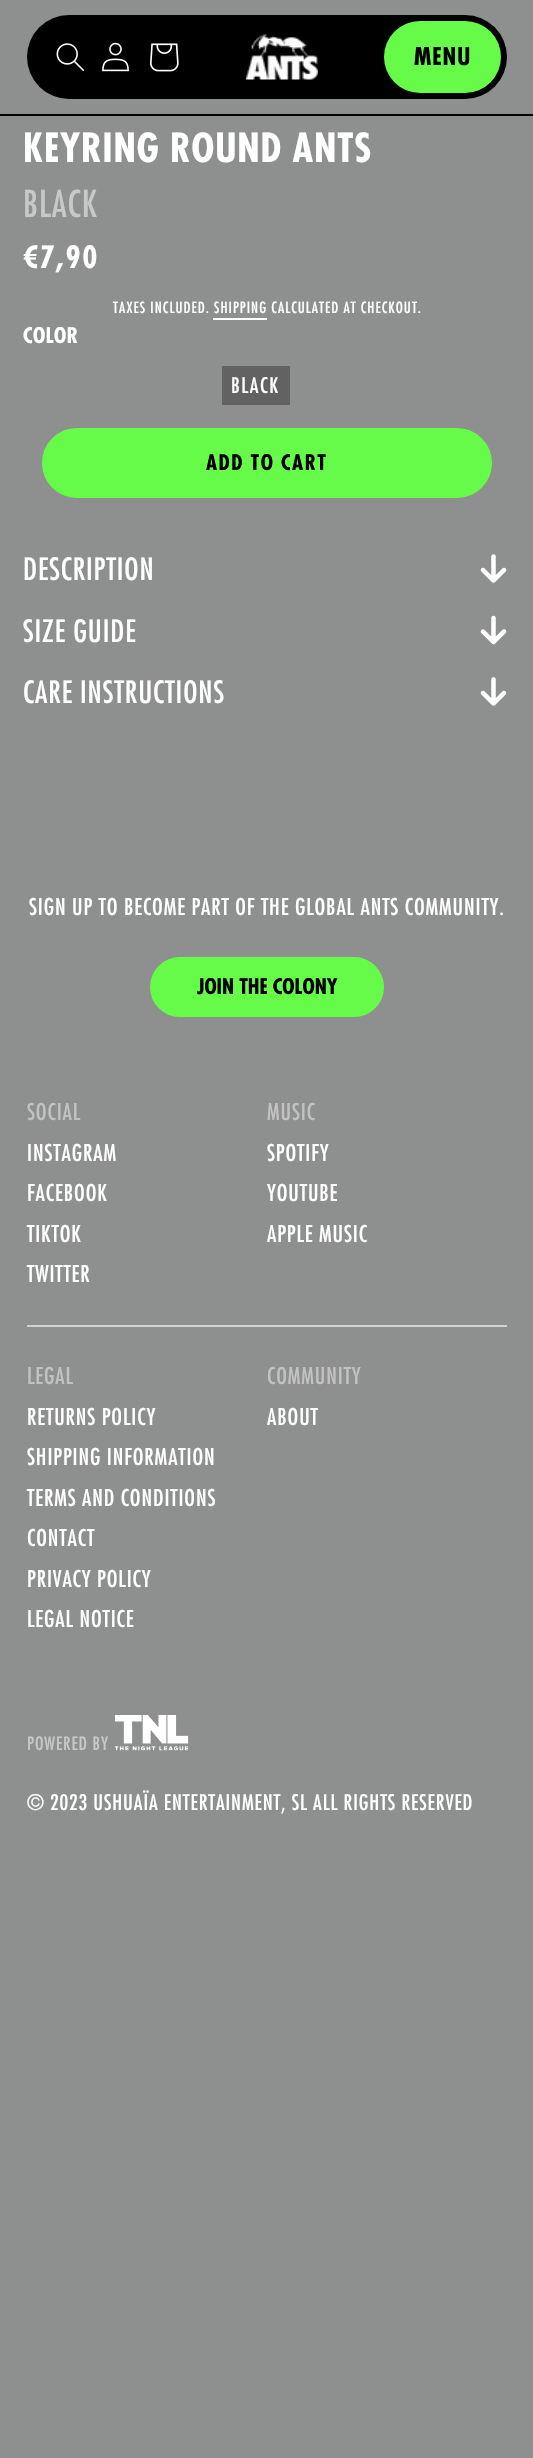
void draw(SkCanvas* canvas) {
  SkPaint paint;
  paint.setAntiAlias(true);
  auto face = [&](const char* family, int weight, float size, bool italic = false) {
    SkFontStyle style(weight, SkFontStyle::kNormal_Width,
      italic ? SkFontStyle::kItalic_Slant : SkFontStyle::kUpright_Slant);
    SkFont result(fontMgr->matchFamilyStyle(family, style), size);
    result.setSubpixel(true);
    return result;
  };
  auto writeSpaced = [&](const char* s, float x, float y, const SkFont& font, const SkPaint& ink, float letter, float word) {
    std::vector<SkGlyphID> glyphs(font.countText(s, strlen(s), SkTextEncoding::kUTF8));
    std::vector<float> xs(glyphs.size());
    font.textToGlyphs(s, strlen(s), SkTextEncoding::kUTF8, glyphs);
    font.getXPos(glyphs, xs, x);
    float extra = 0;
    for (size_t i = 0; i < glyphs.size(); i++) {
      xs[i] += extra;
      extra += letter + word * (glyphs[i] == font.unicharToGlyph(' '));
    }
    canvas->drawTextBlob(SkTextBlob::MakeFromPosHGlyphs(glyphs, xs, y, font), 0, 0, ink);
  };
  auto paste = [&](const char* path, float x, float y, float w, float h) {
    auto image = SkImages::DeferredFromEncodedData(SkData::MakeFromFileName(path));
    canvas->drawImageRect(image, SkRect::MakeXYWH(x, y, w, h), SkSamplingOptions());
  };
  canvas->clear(0xff8e8f8f);
  paint.setColor(0xff000000);
  canvas->drawRoundRect(SkRect::MakeXYWH(27, 15, 480, 84), 42, 42, paint);
  paste("img/1.png", 56, 43, 28, 28);
  paste("img/2.png", 102, 42, 27, 30);
  paste("img/3.png", 150, 43, 29, 29);
  paste("img/4.png", 246, 34, 72, 46);
  paint.setColor(0xff67fb49);
  canvas->drawRoundRect(SkRect::MakeXYWH(384, 21, 117, 72), 36, 36, paint);
  {
    const struct { float x, y, w, h; SkColor color; } items[] = {
      {0, 114, 533, 2, 0xff000000},
      {213, 318, 54, 2, 0xffffffff},
      {222, 366, 68, 39, 0xff636262},
    };
    for (auto [x, y, w, h, color] : items) {
      paint.setColor(color);
      canvas->drawRect(SkRect::MakeXYWH(x, y, w, h), paint);
    }
  }
  paint.setColor(0xff67fb49);
  canvas->drawRoundRect(SkRect::MakeXYWH(43, 429, 448, 68), 34, 34, paint);
  paint.setStroke(true);
  paint.setStrokeWidth(2);
  canvas->drawRoundRect(SkRect::MakeXYWH(43, 429, 448, 68), 34, 34, paint);
  paste("img/5.png", 480, 554, 27, 29);
  paste("img/6.png", 480, 615, 27, 30);
  paste("img/5.png", 480, 677, 27, 29);
  paint.setStroke(false);
  canvas->drawRoundRect(SkRect::MakeXYWH(151, 958, 232, 58), 29, 29, paint);
  paint.setStroke(true);
  canvas->drawRoundRect(SkRect::MakeXYWH(151, 958, 232, 58), 29, 29, paint);
  paint.setStroke(false);
  paint.setColor(0xffd1d1d1);
  canvas->drawRect(SkRect::MakeXYWH(27, 1325, 480, 2), paint);
  paste("img/7.png", 114, 1715, 75, 36);
  auto f0 = face("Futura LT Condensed", 700, 24);
  paint.setColor(0xff000000);
  writeSpaced("MENU", 414, 65, f0, paint, 0.9f, 0);
  auto f1 = face("Futura LT Condensed", 700, 39);
  paint.setColor(0xffffffff);
  writeSpaced("KEYRING ROUND ANTS", 23, 162, f1, paint, 0.9f, 0);
  auto f2 = face("Futura LT Condensed", 500, 36);
  paint.setColor(0xffc8c8c8);
  writeSpaced("BLACK", 23, 217, f2, paint, 0.9f, 0);
  auto f3 = face("Futura LT Condensed", 700, 30);
  paint.setColor(0xffffffff);
  writeSpaced("€7,90", 23, 268, f3, paint, 2, 0);
  auto f4 = face("Futura LT Condensed", 500, 15);
  writeSpaced("TAXES INCLUDED. SHIPPING CALCULATED AT CHECKOUT.", 113, 313, f4, paint, 1.05f, 0);
  auto f5 = face("Futura LT Condensed", 700, 21);
  writeSpaced("COLOR", 23, 343, f5, paint, 0.5f, 0);
  auto f6 = face("Futura LT Condensed", 500, 21);
  writeSpaced("BLACK", 231, 393, f6, paint, 1.5f, 0);
  paint.setColor(0xff000000);
  writeSpaced("ADD TO CART", 206, 470, f5, paint, 1.5f, 0);
  auto f7 = face("Futura LT Condensed", 500, 30);
  paint.setColor(0xffffffff);
  {
    const struct { const char* s; float x, y; } items[] = {
      {"DESCRIPTION", 23, 580},
      {"SIZE GUIDE", 23, 642},
      {"CARE INSTRUCTIONS", 23, 703},
    };
    for (auto [s, x, y] : items) {
      writeSpaced(s, x, y, f7, paint, 0.9f, 0);
    }
  }
  auto f8 = face("Futura LT Condensed", 500, 22.5f);
  writeSpaced("SIGN UP TO BECOME PART OF THE GLOBAL ANTS COMMUNITY.", 29, 915, f8, paint, 0.9f, 0);
  paint.setColor(0xff000000);
  canvas->drawString("JOIN THE COLONY", 197, 994, f5, paint);
  paint.setColor(0xffc2c2c2);
  writeSpaced("SOCIAL", 27, 1120, f8, paint, 0.9f, 0);
  paint.setColor(0xffffffff);
  {
    const struct { const char* s; float x, y; } items[] = {
      {"INSTAGRAM", 27, 1161},
      {"FACEBOOK", 27, 1201},
      {"TIKTOK", 27, 1242},
      {"TWITTER", 27, 1282},
    };
    for (auto [s, x, y] : items) {
      writeSpaced(s, x, y, f8, paint, 0.9f, 0);
    }
  }
  paint.setColor(0xffc2c2c2);
  writeSpaced("MUSIC", 267, 1120, f8, paint, 0.9f, 0);
  paint.setColor(0xffffffff);
  {
    const struct { const char* s; float x, y; } items[] = {
      {"SPOTIFY", 267, 1161},
      {"YOUTUBE", 267, 1201},
      {"APPLE MUSIC", 267, 1242},
    };
    for (auto [s, x, y] : items) {
      writeSpaced(s, x, y, f8, paint, 0.9f, 0);
    }
  }
  paint.setColor(0xffc2c2c2);
  writeSpaced("LEGAL", 27, 1384, f8, paint, 0.9f, 0);
  paint.setColor(0xffffffff);
  {
    const struct { const char* s; float x, y; } items[] = {
      {"RETURNS POLICY", 27, 1425},
      {"SHIPPING INFORMATION", 27, 1465},
      {"TERMS AND CONDITIONS", 27, 1506},
      {"CONTACT", 27, 1546},
      {"PRIVACY POLICY", 27, 1587},
      {"LEGAL NOTICE", 27, 1627},
    };
    for (auto [s, x, y] : items) {
      writeSpaced(s, x, y, f8, paint, 0.9f, 0);
    }
  }
  paint.setColor(0xffc2c2c2);
  writeSpaced("COMMUNITY", 267, 1384, f8, paint, 0.9f, 0);
  paint.setColor(0xffffffff);
  writeSpaced("ABOUT", 267, 1425, f8, paint, 0.9f, 0);
  auto f9 = face("Futura LT Condensed", 500, 18);
  paint.setColor(0xffc8c8c8);
  writeSpaced("POWERED BY", 27, 1750, f9, paint, 0.9f, 0);
  paint.setColor(0xffffffff);
  writeSpaced("© 2023 USHUAÏA ENTERTAINMENT, SL ALL RIGHTS RESERVED", 27, 1810, f6, paint, 0.9f, 0);
}
